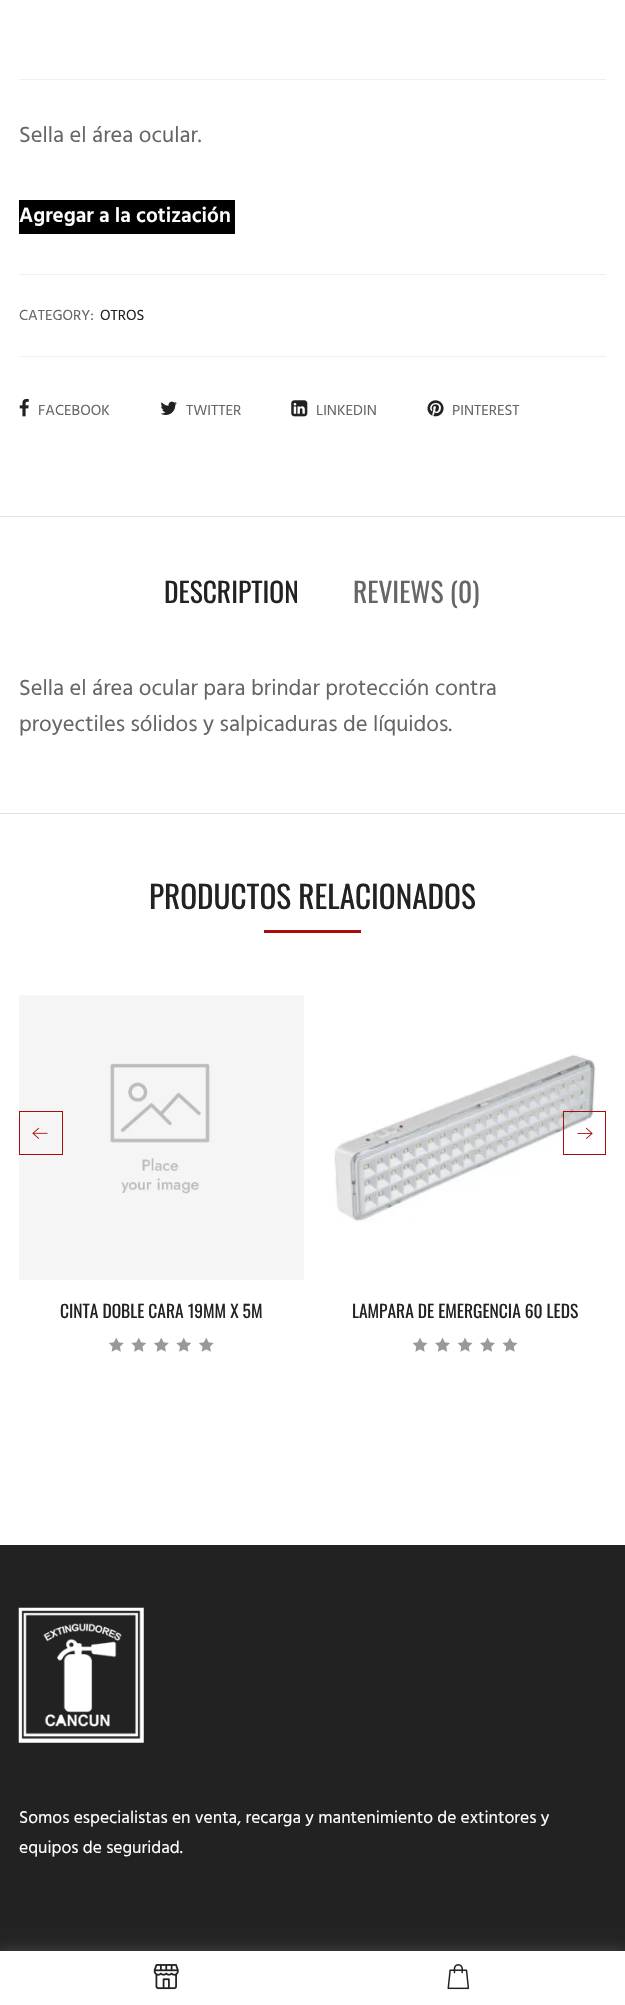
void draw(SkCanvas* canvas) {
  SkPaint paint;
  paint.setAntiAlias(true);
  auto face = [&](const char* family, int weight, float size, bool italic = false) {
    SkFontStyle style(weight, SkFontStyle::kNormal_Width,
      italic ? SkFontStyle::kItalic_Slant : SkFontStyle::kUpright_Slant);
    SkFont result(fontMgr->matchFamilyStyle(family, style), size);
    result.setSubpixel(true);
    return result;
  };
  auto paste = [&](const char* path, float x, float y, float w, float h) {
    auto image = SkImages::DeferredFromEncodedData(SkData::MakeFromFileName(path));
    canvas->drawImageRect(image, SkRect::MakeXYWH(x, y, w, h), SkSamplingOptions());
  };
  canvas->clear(0xffffffff);
  {
    const struct { float x, y, w, h; SkColor color; } items[] = {
      {19, 79, 587, 1, 0xffefefef},
      {19, 200, 216, 34, 0xff000000},
      {19, 274, 587, 1, 0xffefefef},
      {19, 356, 587, 1, 0xffefefef},
    };
    for (auto [x, y, w, h, color] : items) {
      paint.setColor(color);
      canvas->drawRect(SkRect::MakeXYWH(x, y, w, h), paint);
    }
  }
  paste("img/1.png", 19, 398, 10, 19);
  paste("img/2.png", 160, 401, 17, 14);
  paste("img/3.png", 291, 400, 17, 17);
  paste("img/4.png", 427, 400, 17, 17);
  {
    const struct { float x, y, w, h; SkColor color; } items[] = {
      {0, 516, 625, 1, 0xffe1e1e1},
      {0, 813, 625, 1, 0xffe1e1e1},
      {264, 930, 97, 3, 0xffa90a0a},
    };
    for (auto [x, y, w, h, color] : items) {
      paint.setColor(color);
      canvas->drawRect(SkRect::MakeXYWH(x, y, w, h), paint);
    }
  }
  paste("img/7.png", 19, 995, 285, 285);
  paint.setStroke(true);
  paint.setStrokeWidth(1);
  canvas->drawRect(SkRect::MakeXYWH(19.5f, 1111.5f, 43, 43), paint);
  paste("img/5.png", 32, 1127, 16, 12);
  paste("img/9.png", 334, 1054, 262, 169);
  canvas->drawRect(SkRect::MakeXYWH(563.5f, 1111.5f, 42, 43), paint);
  paste("img/6.png", 577, 1127, 16, 12);
  paste("img/8.png", 109, 1337, 105, 15);
  paste("img/10.png", 413, 1337, 105, 15);
  paint.setStroke(false);
  paint.setColor(0xff222222);
  canvas->drawRect(SkRect::MakeXYWH(0, 1545, 625, 406), paint);
  paint.setColor(0x4d8f8f8f);
  paint.setMaskFilter(SkMaskFilter::MakeBlur(kNormal_SkBlurStyle, 7.5f));
  canvas->drawRect(SkRect::MakeXYWH(-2, 1950, 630, 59), paint);
  paint.setMaskFilter(nullptr);
  paint.setColor(0xffffffff);
  canvas->drawRect(SkRect::MakeXYWH(0, 1951, 625, 54), paint);
  paste("img/11.png", 153, 1964, 26, 26);
  paste("img/12.png", 447, 1964, 23, 26);
  paste("img/13.png", 18, 1607, 126, 136);
  auto f0 = face("Hind", 400, 22.5f);
  paint.setColor(0xff666666);
  canvas->drawString("Sella el área ocular.", 19, 142, f0, paint);
  auto f1 = face("Hind", 600, 21);
  paint.setColor(0xffffffff);
  canvas->drawString("Agregar a la cotización", 19, 222, f1, paint);
  auto f2 = face("Hind", 400, 15);
  paint.setColor(0xff666666);
  canvas->drawString("CATEGORY:", 19, 320, f2, paint);
  paint.setColor(0xff222222);
  canvas->drawString("OTROS", 100, 320, f2, paint);
  paint.setColor(0xff666666);
  {
    const struct { const char* s; float x, y; } items[] = {
      {"FACEBOOK", 38, 415},
      {"TWITTER", 186, 415},
      {"LINKEDIN", 316, 415},
      {"PINTEREST", 452, 415},
    };
    for (auto [s, x, y] : items) {
      canvas->drawString(s, x, y, f2, paint);
    }
  }
  auto f3 = face("Oswald", 400, 27.5f);
  paint.setColor(0xff222222);
  canvas->drawString("DESCRIPTION", 164, 603, f3, paint);
  paint.setColor(0xff666666);
  canvas->drawString("REVIEWS (0)", 353, 603, f3, paint);
  canvas->drawString("Sella el área ocular para brindar protección contra", 19, 695, f0, paint);
  canvas->drawString("proyectiles sólidos y salpicaduras de líquidos.", 19, 731, f0, paint);
  auto f4 = face("Oswald", 400, 31.25f);
  paint.setColor(0xff222222);
  canvas->drawString("PRODUCTOS RELACIONADOS", 149, 909, f4, paint);
  auto f5 = face("Oswald", 400, 17.5f);
  canvas->drawString("CINTA DOBLE CARA 19MM X 5M", 60, 1318, f5, paint);
  canvas->drawString("LAMPARA DE EMERGENCIA 60 LEDS", 352, 1318, f5, paint);
  auto f6 = face("Hind", 400, 17.5f);
  paint.setColor(0xffffffff);
  canvas->drawString("Somos especialistas en venta, recarga y mantenimiento de extintores y", 19, 1823, f6, paint);
  canvas->drawString("equipos de seguridad.", 19, 1853, f6, paint);
}
